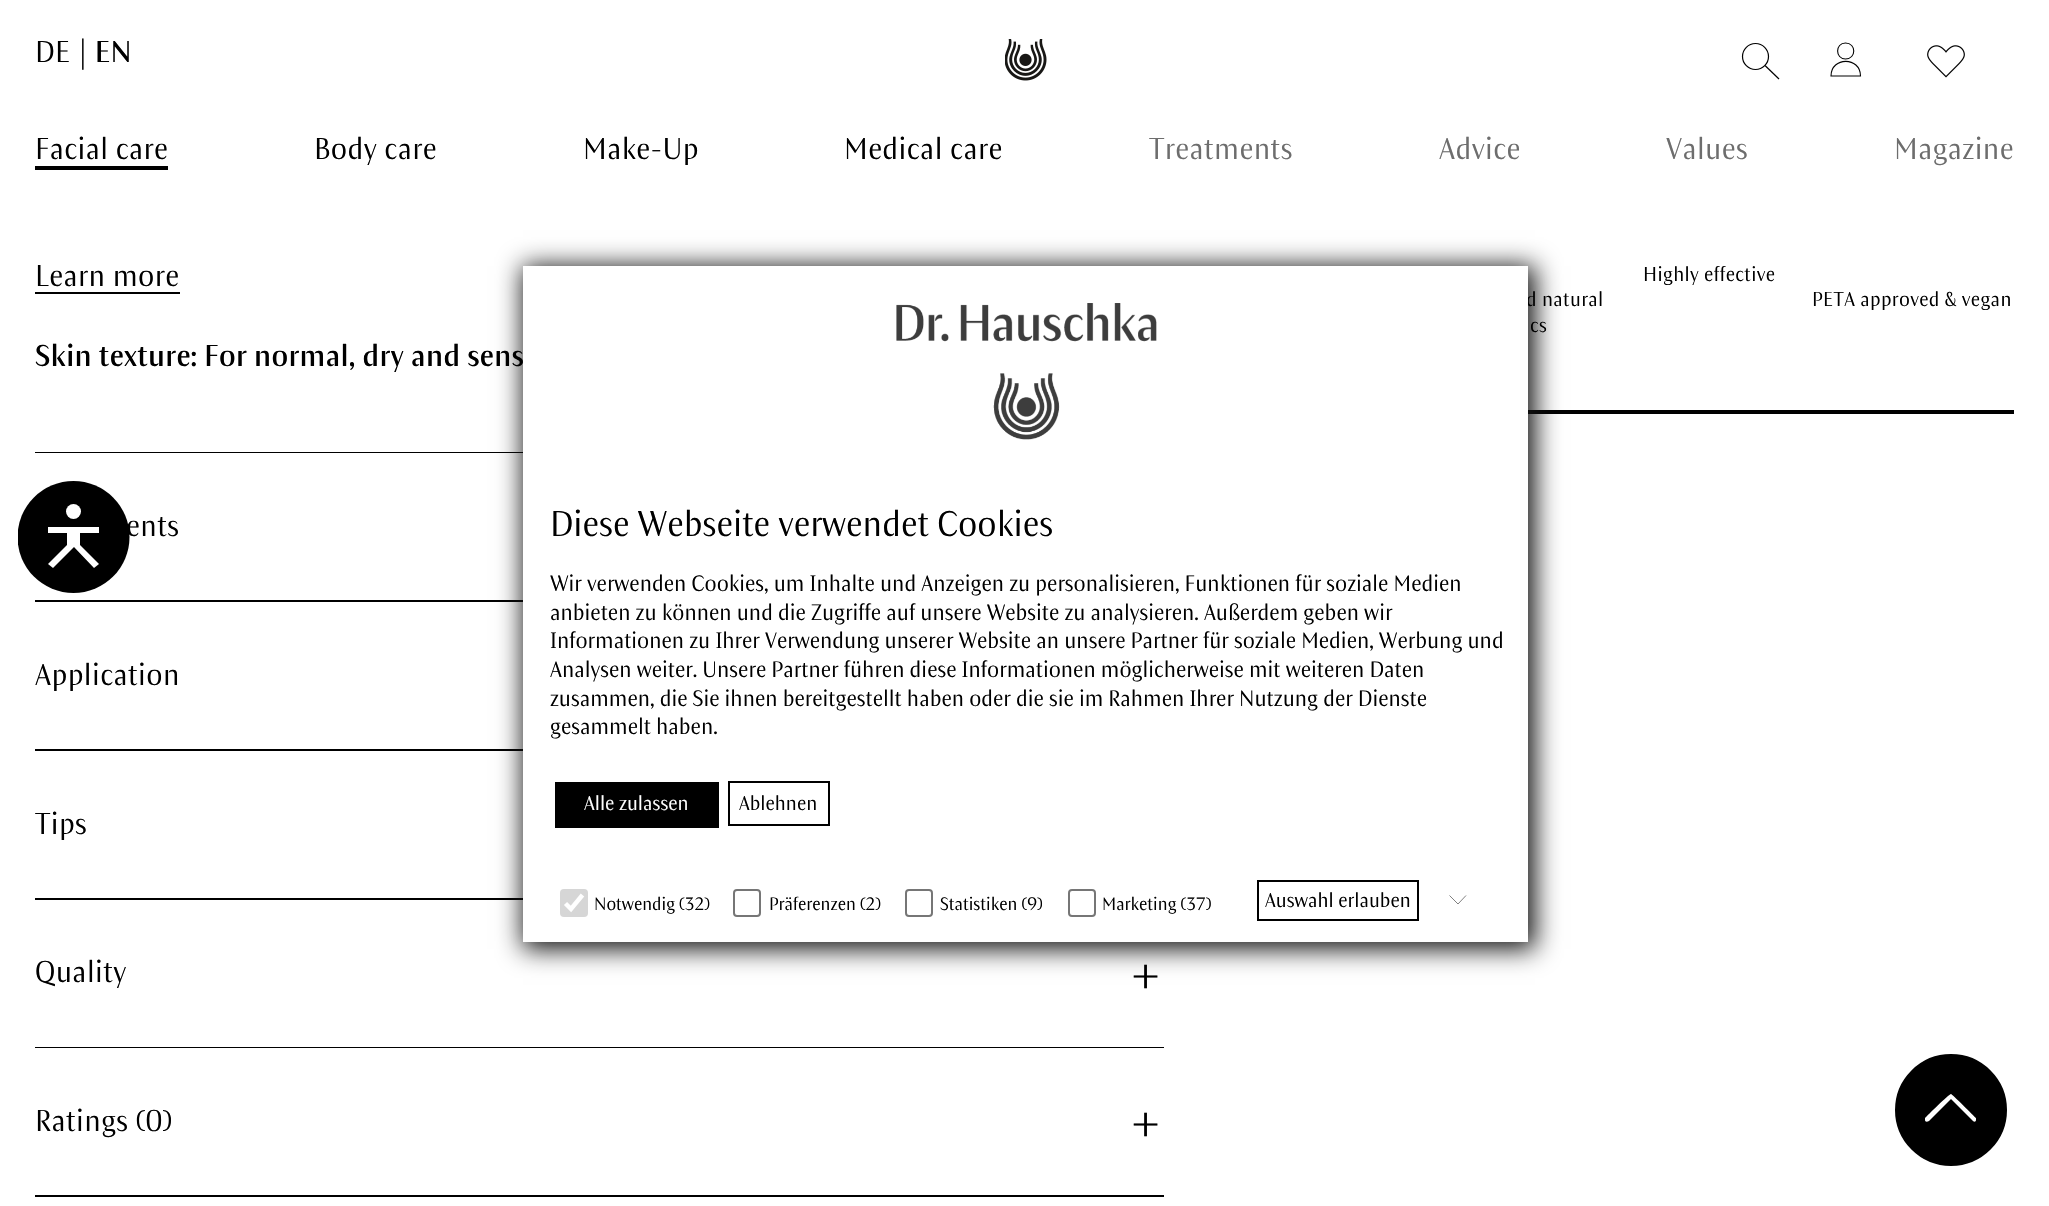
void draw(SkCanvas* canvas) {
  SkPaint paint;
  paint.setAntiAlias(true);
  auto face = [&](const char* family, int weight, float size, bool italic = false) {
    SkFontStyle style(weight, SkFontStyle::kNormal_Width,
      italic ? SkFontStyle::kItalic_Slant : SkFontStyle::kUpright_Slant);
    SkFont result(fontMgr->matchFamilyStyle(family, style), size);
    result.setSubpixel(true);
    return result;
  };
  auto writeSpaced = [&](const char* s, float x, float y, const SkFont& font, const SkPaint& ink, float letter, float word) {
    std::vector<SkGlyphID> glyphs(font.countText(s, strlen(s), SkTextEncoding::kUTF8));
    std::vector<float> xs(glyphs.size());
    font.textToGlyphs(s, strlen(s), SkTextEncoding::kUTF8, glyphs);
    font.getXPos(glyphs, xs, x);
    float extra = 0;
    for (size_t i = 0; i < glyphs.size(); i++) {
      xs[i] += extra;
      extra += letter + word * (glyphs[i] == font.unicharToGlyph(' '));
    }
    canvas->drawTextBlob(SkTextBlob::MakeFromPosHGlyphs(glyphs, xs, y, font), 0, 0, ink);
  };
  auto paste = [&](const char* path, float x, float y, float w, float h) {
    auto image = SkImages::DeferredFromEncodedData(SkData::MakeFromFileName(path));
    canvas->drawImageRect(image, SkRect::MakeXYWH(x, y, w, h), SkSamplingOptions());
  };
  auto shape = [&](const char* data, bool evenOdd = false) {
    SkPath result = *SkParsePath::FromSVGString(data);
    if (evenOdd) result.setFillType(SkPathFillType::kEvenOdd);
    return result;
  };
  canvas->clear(0xffffffff);
  paste("img/1.png", 1005, 39, 42, 42);
  paint.setStroke(true);
  paint.setStrokeWidth(1.2f);
  paint.setColor(0xff000000);
  canvas->drawPath(shape("M1779 79L1765 65.5"), paint);
  paint.setStroke(false);
  paint.setColor(0xffffffff);
  canvas->drawCircle(1755.5f, 56.5f, 13, paint);
  paint.setStroke(true);
  paint.setColor(0xff000000);
  canvas->drawCircle(1755.5f, 56.5f, 13, paint);
  paint.setStrokeWidth(1.1f);
  canvas->drawPath(shape("M1845.5 59C1856.5 59 1856.5 43 1845.5 43C1835 43 1835 59 1845.5 59Z"), paint);
  paint.setStrokeCap(SkPaint::kRound_Cap);
  canvas->drawPath(shape("M1860.5 76C1860.5 56.5 1831 56.5 1831 76Z"), paint);
  paste("img/2.png", 1927, 45, 38, 33);
  paint.setStroke(false);
  {
    const struct { float x, y, w, h; SkColor color; } items[] = {
      {35, 166, 133, 4, 0xff000000},
      {35, 452, 488, 1, 0xff000000},
      {35, 292, 145, 2, 0xff000000},
      {35, 600, 488, 2, 0xff000000},
      {35, 749, 488, 2, 0xff000000},
      {35, 898, 488, 2, 0xff000000},
      {35, 1047, 1129, 1, 0xff000000},
      {35, 1195, 1129, 2, 0xff000000},
      {1528, 410, 486, 4, 0xff000000},
    };
    for (auto [x, y, w, h, color] : items) {
      paint.setColor(color);
      canvas->drawRect(SkRect::MakeXYWH(x, y, w, h), paint);
    }
  }
  canvas->save();
  canvas->clipRect(SkRect::MakeXYWH(18, 481, 112, 112));
  canvas->drawCircle(73.5f, 537, 56, paint);
  canvas->restore();
  paint.setColor(0xffffffff);
  canvas->drawCircle(73.5f, 511.5f, 7.5f, paint);
  canvas->drawPath(shape("M80 545V533H99V527H48V533H67V545L48 564L53 568L74 547L94 568L99 564Z"), paint);
  paint.setColor(0xff121212);
  paint.setMaskFilter(SkMaskFilter::MakeBlur(kNormal_SkBlurStyle, 12));
  canvas->drawRect(SkRect::MakeXYWH(523, 266, 1012, 683), paint);
  paint.setMaskFilter(nullptr);
  paint.setColor(0xff000000);
  canvas->drawCircle(1951, 1110, 55, paint);
  paint.setStroke(true);
  paint.setStrokeWidth(2);
  paint.setStrokeCap(SkPaint::kButt_Cap);
  canvas->drawCircle(1951, 1110, 55, paint);
  paint.setStroke(false);
  paint.setColor(0xffffffff);
  canvas->drawPath(shape("M1951 1099L1973 1121C1974 1122 1976 1122 1976 1120V1118C1974 1116 1952 1094 1951 1094C1949 1094 1927 1116 1925 1118V1120C1925 1122 1927 1122 1929 1121Z", true), paint);
  auto f0 = face("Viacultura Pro", 400, 31.5f);
  paint.setColor(0xff000000);
  writeSpaced("DE", 35, 62, f0, paint, 0.35f, 0);
  writeSpaced("|", 79, 62, f0, paint, 0.35f, 0);
  auto f1 = face("Viacultura Pro", 600, 31.5f);
  writeSpaced("EN", 95, 62, f1, paint, 0.35f, 0);
  {
    const struct { const char* s; float x, y; } items[] = {
      {"Facial care", 35, 159},
      {"Body care", 314, 159},
      {"Make-Up", 583, 159},
      {"Medical care", 844, 159},
    };
    for (auto [s, x, y] : items) {
      writeSpaced(s, x, y, f0, paint, 0.35f, 0);
    }
  }
  paint.setColor(0xff6d6d6d);
  {
    const struct { const char* s; float x, y; } items[] = {
      {"Treatments", 1149, 159},
      {"Advice", 1439, 159},
      {"Values", 1666, 159},
      {"Magazine", 1894, 159},
    };
    for (auto [s, x, y] : items) {
      writeSpaced(s, x, y, f0, paint, 0.35f, 0);
    }
  }
  paint.setColor(0xff000000);
  writeSpaced("Learn more", 35, 286, f0, paint, 0.35f, 0);
  writeSpaced("Skin texture: For normal, dry and sens", 35, 366, f1, paint, 0.35f, 0);
  {
    const struct { const char* s; float x, y; } items[] = {
      {"ents", 126, 536},
      {"Application", 35, 685},
      {"Tips", 35, 834},
      {"Quality", 35, 982},
    };
    for (auto [s, x, y] : items) {
      writeSpaced(s, x, y, f0, paint, 0.35f, 0);
    }
  }
  auto f2 = face("Viacultura Pro", 400, 56);
  writeSpaced("+", 1131, 995, f2, paint, 0.35f, 0);
  writeSpaced("Ratings (0)", 35, 1131, f0, paint, 0.35f, 0);
  writeSpaced("+", 1131, 1143, f2, paint, 0.35f, 0);
  auto f3 = face("Viacultura Pro", 400, 21);
  {
    const struct { const char* s; float x, y; } items[] = {
      {"Highly effective", 1643, 281},
      {"d natural", 1526, 306},
      {"cs", 1530, 332},
      {"PETA approved & vegan", 1812, 306},
    };
    for (auto [s, x, y] : items) {
      writeSpaced(s, x, y, f3, paint, 0.35f, 0);
    }
  }
  paint.setColor(0xffffffff);
  canvas->drawRect(SkRect::MakeXYWH(523, 266, 1005, 676), paint);
  paste("img/3.png", 896, 303, 261, 137);
  auto f4 = face("Viacultura Pro", 400, 37.3f);
  paint.setColor(0xff000000);
  canvas->drawString("Diese Webseite verwendet Cookies", 550, 536, f4, paint);
  auto f5 = face("Viacultura Pro", 400, 23.35f);
  {
    const struct { const char* s; float x, y; } items[] = {
      {"Wir verwenden Cookies, um Inhalte und Anzeigen zu personalisieren, Funktionen für soziale Medien", 550, 591},
      {"anbieten zu können und die Zugriffe auf unsere Website zu analysieren. Außerdem geben wir", 550, 620},
      {"Informationen zu Ihrer Verwendung unserer Website an unsere Partner für soziale Medien, Werbung und", 550, 648},
      {"Analysen weiter. Unsere Partner führen diese Informationen möglicherweise mit weiteren Daten", 550, 677},
      {"zusammen, die Sie ihnen bereitgestellt haben oder die sie im Rahmen Ihrer Nutzung der Dienste", 550, 706},
      {"gesammelt haben.", 550, 734},
    };
    for (auto [s, x, y] : items) {
      canvas->drawString(s, x, y, f5, paint);
    }
  }
  canvas->drawRect(SkRect::MakeXYWH(555, 782, 164, 46), paint);
  paint.setColor(0xffffffff);
  canvas->drawString("Alle zulassen", 584, 810, f3, paint);
  paint.setStroke(true);
  paint.setColor(0xff000000);
  canvas->drawRect(SkRect::MakeXYWH(729, 782, 100, 43), paint);
  paint.setStroke(false);
  canvas->drawString("Ablehnen", 739, 810, f3, paint);
  paint.setColor(0xffd6d6d6);
  canvas->drawRoundRect(SkRect::MakeXYWH(560, 889, 28, 28), 4, 4, paint);
  paint.setStroke(true);
  paint.setStrokeWidth(4.5f);
  paint.setColor(0xffffffff);
  canvas->drawPath(shape("M565.5 903.5L571 909L582.5 895"), paint);
  auto f6 = face("Viacultura Pro", 400, 18.75f);
  paint.setStroke(false);
  paint.setColor(0xff000000);
  canvas->drawString("Notwendig (32)", 594, 910, f6, paint);
  paint.setStroke(true);
  paint.setStrokeWidth(2);
  paint.setColor(0xff767676);
  canvas->drawRoundRect(SkRect::MakeXYWH(734, 890, 26, 26), 3, 3, paint);
  paint.setStroke(false);
  paint.setColor(0xff000000);
  canvas->drawString("Präferenzen (2)", 769, 910, f6, paint);
  paint.setStroke(true);
  paint.setColor(0xff767676);
  canvas->drawRoundRect(SkRect::MakeXYWH(906, 890, 26, 26), 3, 3, paint);
  paint.setStroke(false);
  paint.setColor(0xff000000);
  canvas->drawString("Statistiken (9)", 940, 910, f6, paint);
  paint.setStroke(true);
  paint.setColor(0xff767676);
  canvas->drawRoundRect(SkRect::MakeXYWH(1069, 890, 26, 26), 3, 3, paint);
  paint.setStroke(false);
  paint.setColor(0xff000000);
  canvas->drawString("Marketing (37)", 1102, 910, f6, paint);
  paint.setStroke(true);
  canvas->drawRect(SkRect::MakeXYWH(1258, 881, 160, 39), paint);
  paint.setStroke(false);
  canvas->drawString("Auswahl erlauben", 1265, 907, f3, paint);
  paint.setStroke(true);
  paint.setStrokeWidth(0.5f);
  canvas->drawPath(shape("M1466 895.5L1458 904L1449.5 895.5"), paint);
}
